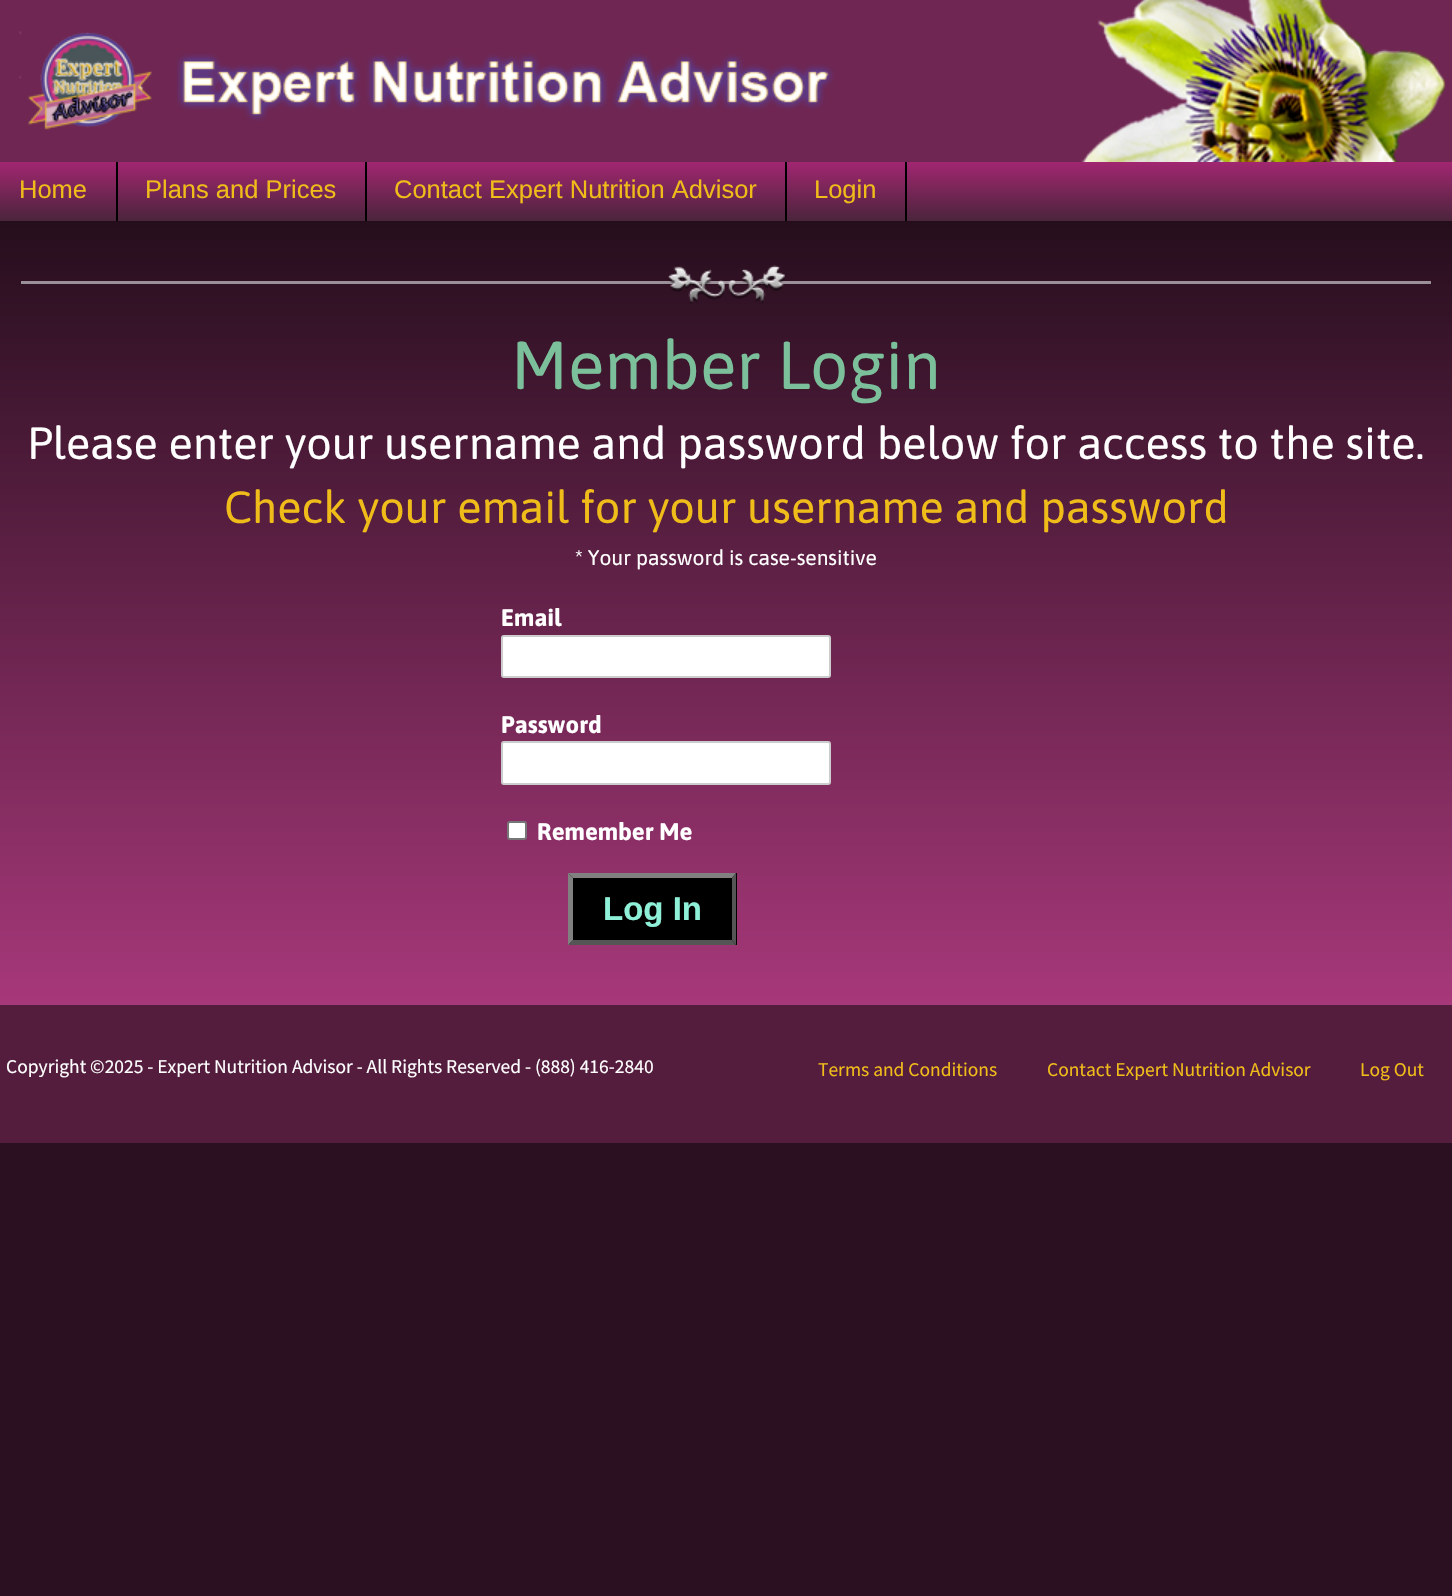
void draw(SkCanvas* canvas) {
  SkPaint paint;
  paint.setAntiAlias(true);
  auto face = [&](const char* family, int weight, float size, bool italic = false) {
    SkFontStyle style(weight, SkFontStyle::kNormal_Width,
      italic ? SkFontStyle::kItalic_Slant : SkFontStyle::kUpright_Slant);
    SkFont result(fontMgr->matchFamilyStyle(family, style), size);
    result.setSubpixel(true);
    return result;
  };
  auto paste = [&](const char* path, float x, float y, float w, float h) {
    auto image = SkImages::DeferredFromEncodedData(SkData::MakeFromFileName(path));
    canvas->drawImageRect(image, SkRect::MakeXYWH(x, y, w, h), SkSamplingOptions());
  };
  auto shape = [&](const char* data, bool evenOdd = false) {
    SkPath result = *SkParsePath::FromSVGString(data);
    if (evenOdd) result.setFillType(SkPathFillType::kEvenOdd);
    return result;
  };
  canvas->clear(0xff2a1020);
  paint.setColor(0xff6f2652);
  canvas->drawRect(SkRect::MakeXYWH(0, 0, 1452, 162), paint);
  paste("img/1.png", 19, 0, 1427, 162);
  {
    const SkColor colors[] = {0xffa12670, 0xff4b253c};
    const float stops[] = {0, 1};
    const SkPoint ends[] = {{726, 162}, {726, 221}};
    paint.setShader(SkGradientShader::MakeLinear(ends, colors, stops, 2, SkTileMode::kClamp));
    paint.setAlpha(255);
  }
  canvas->drawRect(SkRect::MakeXYWH(0, 162, 1452, 59), paint);
  paint.setShader(nullptr);
  {
    const struct { float x, y, w, h; SkColor color; } items[] = {
      {116, 162, 2, 59, 0xff000000},
      {365, 162, 2, 59, 0xff000000},
      {905, 162, 2, 59, 0xff000000},
      {785, 162, 2, 59, 0xff000000},
    };
    for (auto [x, y, w, h, color] : items) {
      paint.setColor(color);
      canvas->drawRect(SkRect::MakeXYWH(x, y, w, h), paint);
    }
  }
  {
    const SkColor colors[] = {0xff250e1c, 0xffa7387a};
    const float stops[] = {0, 1};
    const SkPoint ends[] = {{726, 220}, {726, 1005}};
    paint.setShader(SkGradientShader::MakeLinear(ends, colors, stops, 2, SkTileMode::kClamp));
    paint.setAlpha(255);
  }
  canvas->drawRect(SkRect::MakeXYWH(0, 221, 1452, 784), paint);
  paint.setShader(nullptr);
  paint.setColor(0xff9c9098);
  canvas->drawRect(SkRect::MakeXYWH(21, 281, 1410, 3), paint);
  paste("img/2.png", 668, 265, 117, 40);
  paint.setColor(0xffffffff);
  canvas->drawRoundRect(SkRect::MakeXYWH(502, 636, 328, 41), 2, 2, paint);
  paint.setStroke(true);
  paint.setStrokeWidth(2);
  paint.setColor(0xffcccccc);
  canvas->drawRoundRect(SkRect::MakeXYWH(502, 636, 328, 41), 2, 2, paint);
  paint.setStroke(false);
  paint.setColor(0xffffffff);
  canvas->drawRoundRect(SkRect::MakeXYWH(502, 742, 328, 42), 2, 2, paint);
  paint.setStroke(true);
  paint.setColor(0xffcccccc);
  canvas->drawRoundRect(SkRect::MakeXYWH(502, 742, 328, 42), 2, 2, paint);
  paint.setStroke(false);
  paint.setColor(0xffffffff);
  canvas->drawRoundRect(SkRect::MakeXYWH(508, 822, 18, 17), 2, 2, paint);
  paint.setStroke(true);
  paint.setColor(0xff767676);
  canvas->drawRoundRect(SkRect::MakeXYWH(508, 822, 18, 17), 2, 2, paint);
  paint.setStroke(false);
  paint.setColor(0xff000000);
  canvas->drawRect(SkRect::MakeXYWH(569, 873, 168, 72), paint);
  paint.setColor(0xff808080);
  canvas->drawPath(shape("M568 873H736L732 878H573Z"), paint);
  paint.setColor(0xff555555);
  canvas->drawPath(shape("M736 873V945L732 940V878Z"), paint);
  canvas->drawPath(shape("M736 945H568L573 940H732Z"), paint);
  paint.setColor(0xff808080);
  canvas->drawPath(shape("M568 945V873L573 878V940Z"), paint);
  paint.setColor(0xff541d3e);
  canvas->drawRect(SkRect::MakeXYWH(0, 1005, 1452, 138), paint);
  auto f0 = face("Liberation Sans", 400, 25.5f);
  paint.setColor(0xfff0bc1a);
  {
    const struct { const char* s; float x, y; } items[] = {
      {"Home", 19, 198},
      {"Plans and Prices", 145, 198},
      {"Contact Expert Nutrition Advisor", 394, 198},
      {"Login", 814, 198},
    };
    for (auto [s, x, y] : items) {
      canvas->drawString(s, x, y, f0, paint);
    }
  }
  auto f1 = face("Asap", 400, 67.5f);
  paint.setColor(0xff7cc09b);
  canvas->drawString("Member Login", 511, 389, f1, paint);
  auto f2 = face("Asap", 400, 45);
  paint.setColor(0xffffffff);
  canvas->drawString("Please enter your username and password below for access to the site.", 27, 459, f2, paint);
  paint.setColor(0xfff0bc1a);
  canvas->drawString("Check your email for your username and password", 224, 523, f2, paint);
  auto f3 = face("Asap", 400, 21);
  paint.setColor(0xffffffff);
  canvas->drawString("* Your password is case-sensitive", 575, 565, f3, paint);
  auto f4 = face("Asap", 700, 24);
  {
    const struct { const char* s; float x, y; } items[] = {
      {"Email", 501, 626},
      {"Password", 501, 733},
      {"Remember Me", 537, 840},
    };
    for (auto [s, x, y] : items) {
      canvas->drawString(s, x, y, f4, paint);
    }
  }
  auto f5 = face("Liberation Sans", 700, 33);
  paint.setColor(0xff8ff0d8);
  canvas->drawString("Log In", 603, 920, f5, paint);
  auto f6 = face("Source Sans Pro", 400, 19.5f);
  paint.setColor(0xffffffff);
  canvas->drawString("Copyright ©2025 - Expert Nutrition Advisor - All Rights Reserved - (888) 416-2840", 6, 1073, f6, paint);
  paint.setColor(0xfff0bc1a);
  {
    const struct { const char* s; float x, y; } items[] = {
      {"Terms and Conditions", 818, 1076},
      {"Contact Expert Nutrition Advisor", 1047, 1076},
      {"Log Out", 1360, 1076},
    };
    for (auto [s, x, y] : items) {
      canvas->drawString(s, x, y, f6, paint);
    }
  }
}
